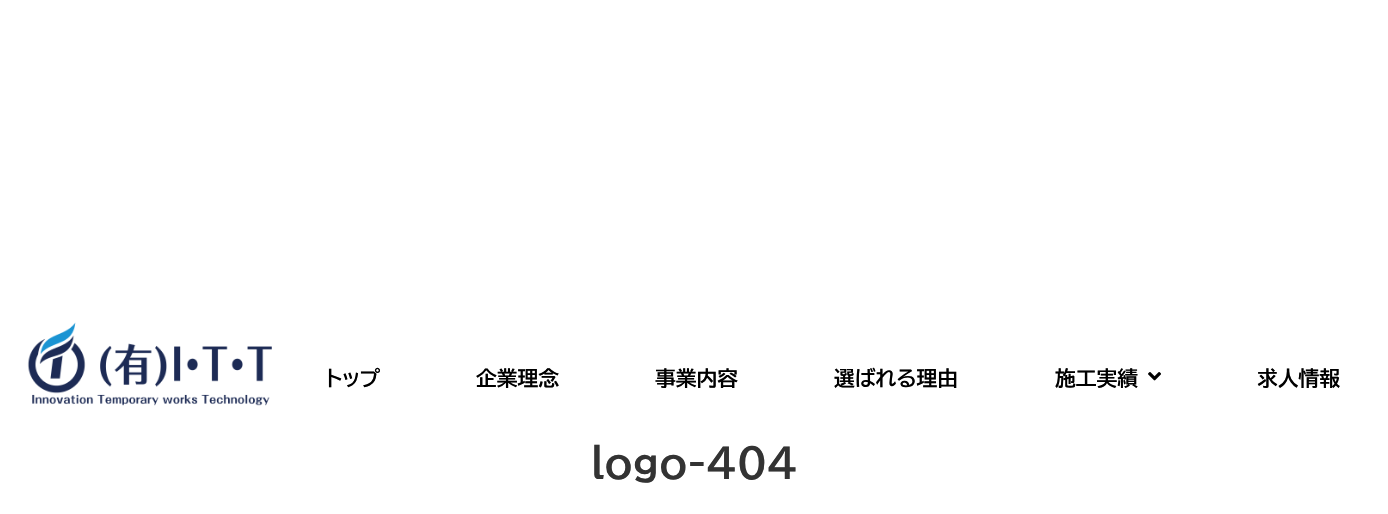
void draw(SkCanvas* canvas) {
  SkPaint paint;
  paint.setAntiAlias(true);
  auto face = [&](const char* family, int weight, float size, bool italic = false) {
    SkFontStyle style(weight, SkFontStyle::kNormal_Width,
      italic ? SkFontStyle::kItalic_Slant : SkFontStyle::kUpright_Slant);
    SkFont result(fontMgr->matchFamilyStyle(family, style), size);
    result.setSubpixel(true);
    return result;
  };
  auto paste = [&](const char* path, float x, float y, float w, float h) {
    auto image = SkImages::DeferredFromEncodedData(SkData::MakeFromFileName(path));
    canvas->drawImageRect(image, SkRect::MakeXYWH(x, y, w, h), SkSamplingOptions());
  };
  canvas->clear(0xffffffff);
  paste("img/1.png", 27, 322, 245, 84);
  paste("img/2.png", 1148, 372, 13, 9);
  auto f0 = face("BIZ UDPGothic", 700, 20.75f);
  paint.setColor(0xff000000);
  {
    const struct { const char* s; float x, y; } items[] = {
      {"トップ", 326, 386},
      {"企業理念", 476, 386},
      {"事業内容", 655, 386},
      {"選ばれる理由", 834, 386},
      {"施工実績", 1055, 386},
      {"求人情報", 1257, 386},
    };
    for (auto [s, x, y] : items) {
      canvas->drawString(s, x, y, f0, paint);
    }
  }
  auto f1 = face("BIZ UDPGothic", 700, 40);
  paint.setColor(0xff333333);
  canvas->drawString("logo-404", 590, 478, f1, paint);
}
